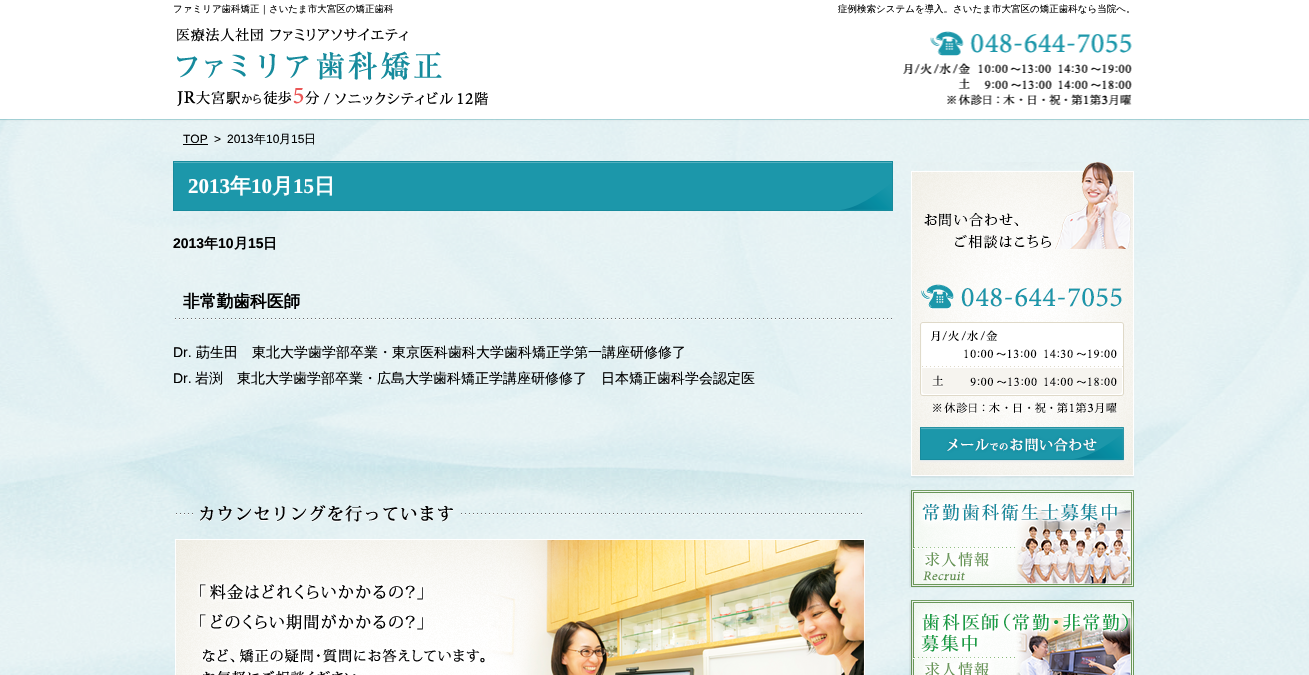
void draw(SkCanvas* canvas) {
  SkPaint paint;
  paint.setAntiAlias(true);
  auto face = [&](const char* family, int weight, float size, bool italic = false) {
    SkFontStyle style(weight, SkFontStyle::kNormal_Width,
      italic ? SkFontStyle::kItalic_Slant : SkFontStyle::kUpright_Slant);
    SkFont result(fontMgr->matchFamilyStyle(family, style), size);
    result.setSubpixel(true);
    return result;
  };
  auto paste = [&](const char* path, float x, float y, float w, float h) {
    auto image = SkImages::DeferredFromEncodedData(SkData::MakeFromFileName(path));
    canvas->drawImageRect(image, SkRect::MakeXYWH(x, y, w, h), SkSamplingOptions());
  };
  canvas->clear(0xffffffff);
  paste("img/1.png", 0, 0, 1309, 675);
  paste("img/2.png", 177, 28, 311, 78);
  paste("img/3.png", 173, 161, 720, 50);
  paint.setColor(0xff000000);
  canvas->drawRect(SkRect::MakeXYWH(183, 144, 25, 1), paint);
  paste("img/4.png", 175, 318, 717, 2);
  paste("img/5.png", 176, 505, 686, 18);
  paste("img/6.png", 175, 539, 690, 136);
  paste("img/7.png", 911, 162, 223, 316);
  paste("img/8.png", 909, 490, 225, 98);
  paste("img/9.png", 909, 600, 225, 75);
  auto f0 = face("WenQuanYi Zen Hei", 500, 9.5f);
  canvas->drawString("ファミリア歯科矯正｜さいたま市大宮区の矯正歯科", 173, 12, f0, paint);
  canvas->drawString("症例検索システムを導入。さいたま市大宮区の矯正歯科なら当院へ。", 838, 12, f0, paint);
  auto f1 = face("Liberation Serif", 700, 21);
  paint.setColor(0xffffffff);
  canvas->drawString("2013", 188, 193, f1, paint);
  auto f2 = face("WenQuanYi Zen Hei", 700, 21);
  canvas->drawString("年", 230, 193, f2, paint);
  canvas->drawString("10", 251, 193, f1, paint);
  canvas->drawString("月", 272, 193, f2, paint);
  canvas->drawString("15", 293, 193, f1, paint);
  canvas->drawString("日", 314, 193, f2, paint);
  auto f3 = face("Liberation Sans", 400, 12);
  paint.setColor(0xff000000);
  {
    const struct { const char* s; float x, y; } items[] = {
      {"TOP", 183, 143},
      {">", 214, 143},
      {"2013", 227, 143},
    };
    for (auto [s, x, y] : items) {
      canvas->drawString(s, x, y, f3, paint);
    }
  }
  auto f4 = face("WenQuanYi Zen Hei", 500, 12);
  canvas->drawString("年", 254, 143, f4, paint);
  canvas->drawString("10", 266, 143, f3, paint);
  canvas->drawString("月", 279, 143, f4, paint);
  canvas->drawString("15", 291, 143, f3, paint);
  canvas->drawString("日", 304, 143, f4, paint);
  auto f5 = face("Liberation Sans", 700, 14);
  canvas->drawString("2013", 173, 248, f5, paint);
  auto f6 = face("WenQuanYi Zen Hei", 700, 14);
  canvas->drawString("年", 204, 248, f6, paint);
  canvas->drawString("10", 218, 248, f5, paint);
  canvas->drawString("月", 234, 248, f6, paint);
  canvas->drawString("15", 248, 248, f5, paint);
  canvas->drawString("日", 263, 248, f6, paint);
  auto f7 = face("WenQuanYi Zen Hei", 700, 16.75f);
  canvas->drawString("非常勤歯科医師", 183, 307, f7, paint);
  auto f8 = face("Liberation Sans", 400, 14);
  canvas->drawString("Dr.", 173, 357, f8, paint);
  auto f9 = face("WenQuanYi Zen Hei", 500, 14);
  canvas->drawString("莇生田　東北大学歯学部卒業・東京医科歯科大学歯科矯正学第一講座研修修了", 196, 357, f9, paint);
  canvas->drawString("Dr.", 173, 383, f8, paint);
  canvas->drawString("岩渕　東北大学歯学部卒業・広島大学歯科矯正学講座研修修了　日本矯正歯科学会認定医", 195, 383, f9, paint);
}
